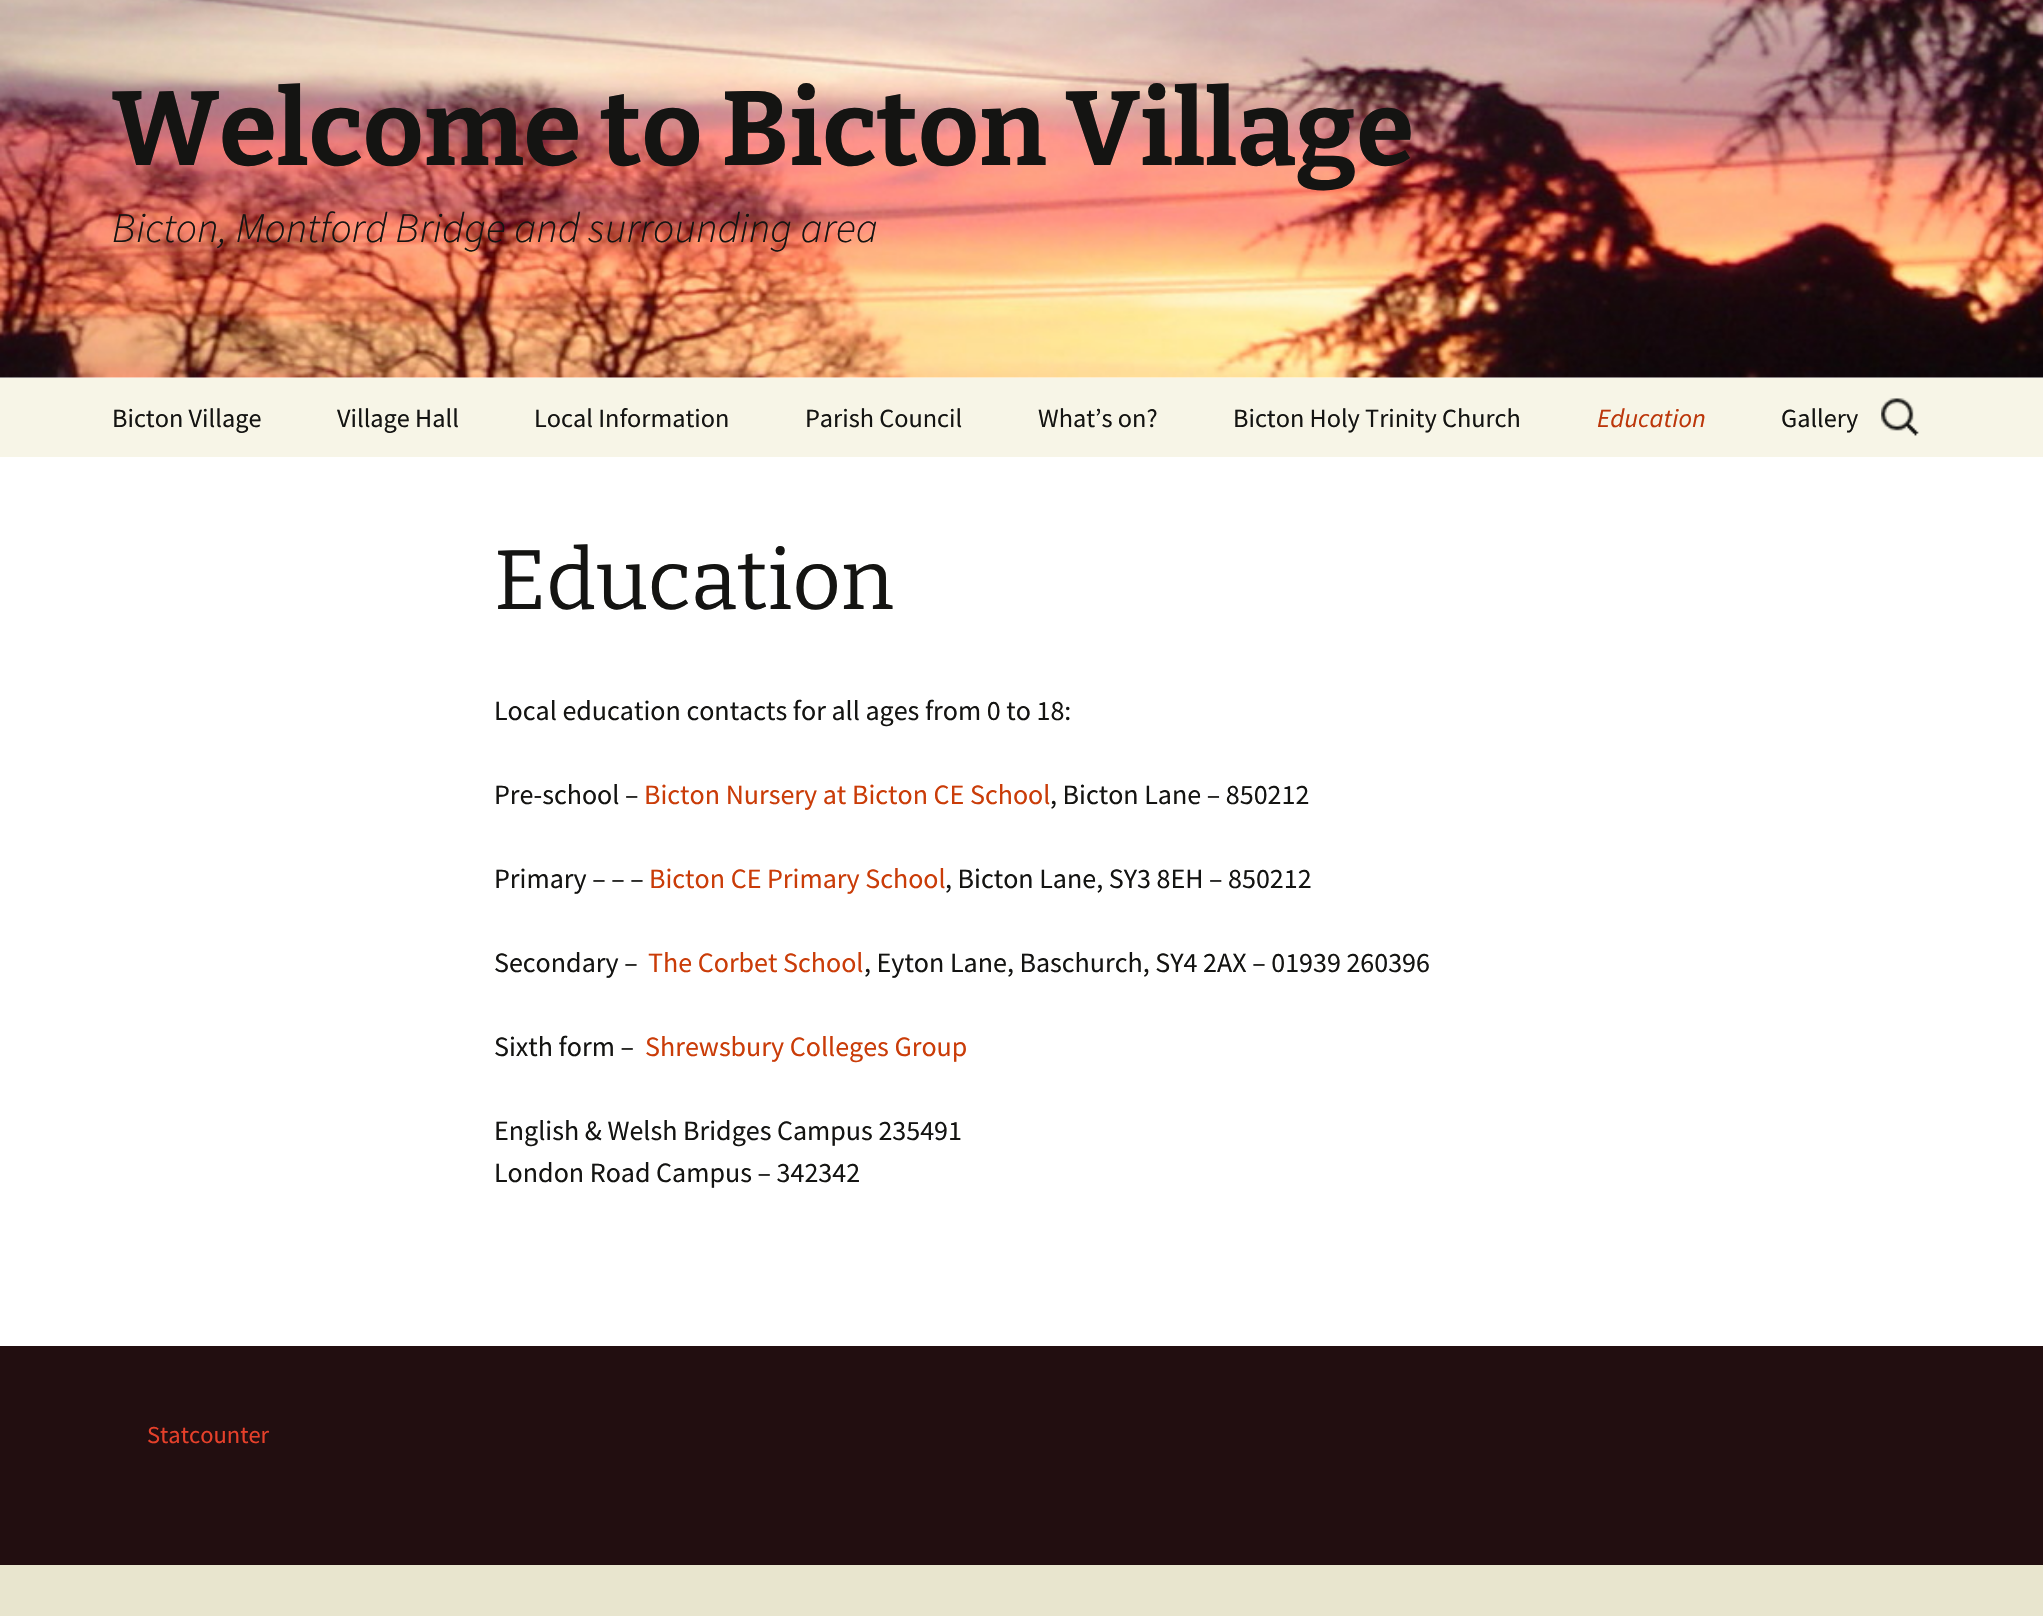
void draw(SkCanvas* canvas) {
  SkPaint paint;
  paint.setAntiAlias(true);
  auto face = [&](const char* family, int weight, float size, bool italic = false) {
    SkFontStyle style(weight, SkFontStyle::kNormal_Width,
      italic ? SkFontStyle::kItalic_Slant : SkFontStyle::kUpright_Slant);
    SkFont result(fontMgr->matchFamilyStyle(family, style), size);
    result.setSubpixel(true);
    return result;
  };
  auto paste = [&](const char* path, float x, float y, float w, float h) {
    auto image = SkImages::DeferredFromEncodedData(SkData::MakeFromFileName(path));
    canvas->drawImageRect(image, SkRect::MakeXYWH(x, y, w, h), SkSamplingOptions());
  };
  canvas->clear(0xffffffff);
  paste("img/1.png", 0, 0, 2043, 378);
  paint.setColor(0xfff7f5e7);
  canvas->drawRect(SkRect::MakeXYWH(0, 378, 2043, 79), paint);
  paste("img/2.png", 1881, 398, 38, 38);
  paint.setColor(0xffe8e5ce);
  canvas->drawRect(SkRect::MakeXYWH(0, 1565, 2043, 51), paint);
  paint.setColor(0xff220e10);
  canvas->drawRect(SkRect::MakeXYWH(0, 1346, 2043, 219), paint);
  auto f0 = face("Bitter", 100, 105);
  paint.setColor(0xff141412);
  canvas->drawString("Welcome to Bicton Village", 112, 165, f0, paint);
  auto f1 = face("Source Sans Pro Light", 300, 42, true);
  canvas->drawString("Bicton, Montford Bridge and surrounding area", 112, 242, f1, paint);
  auto f2 = face("Source Sans Pro", 400, 26.25f);
  {
    const struct { const char* s; float x, y; } items[] = {
      {"Bicton Village", 112, 427},
      {"Village Hall", 337, 427},
      {"Local Information", 534, 427},
      {"Parish Council", 805, 427},
      {"What’s on?", 1038, 427},
      {"Bicton Holy Trinity Church", 1233, 427},
    };
    for (auto [s, x, y] : items) {
      canvas->drawString(s, x, y, f2, paint);
    }
  }
  auto f3 = face("Source Sans Pro", 400, 26.25f, true);
  paint.setColor(0xffbc360a);
  canvas->drawString("Education", 1597, 427, f3, paint);
  paint.setColor(0xff141412);
  canvas->drawString("Gallery", 1781, 427, f2, paint);
  auto f4 = face("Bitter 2", 100, 84);
  canvas->drawString("Education", 494, 609, f4, paint);
  auto f5 = face("Source Sans Pro", 400, 28);
  canvas->drawString("Local education contacts for all ages from 0 to 18:", 494, 720, f5, paint);
  canvas->drawString("Pre-school –", 494, 804, f5, paint);
  paint.setColor(0xffca3c08);
  canvas->drawString("Bicton Nursery at Bicton CE School", 644, 804, f5, paint);
  paint.setColor(0xff141412);
  canvas->drawString(", Bicton Lane – 850212", 1050, 804, f5, paint);
  canvas->drawString("Primary – – –", 494, 888, f5, paint);
  paint.setColor(0xffca3c08);
  canvas->drawString("Bicton CE Primary School", 649, 888, f5, paint);
  paint.setColor(0xff141412);
  canvas->drawString(", Bicton Lane, SY3 8EH – 850212", 945, 888, f5, paint);
  canvas->drawString("Secondary –", 494, 972, f5, paint);
  paint.setColor(0xffca3c08);
  canvas->drawString("The Corbet School", 648, 972, f5, paint);
  paint.setColor(0xff141412);
  canvas->drawString(", Eyton Lane, Baschurch, SY4 2AX – 01939 260396", 864, 972, f5, paint);
  canvas->drawString("Sixth form –", 494, 1056, f5, paint);
  paint.setColor(0xffca3c08);
  canvas->drawString("Shrewsbury Colleges Group", 645, 1056, f5, paint);
  paint.setColor(0xff141412);
  canvas->drawString("English & Welsh Bridges Campus 235491", 494, 1140, f5, paint);
  canvas->drawString("London Road Campus – 342342", 494, 1182, f5, paint);
  auto f6 = face("Source Sans Pro", 400, 24.5f);
  paint.setColor(0xffe6402a);
  canvas->drawString("Statcounter", 147, 1443, f6, paint);
}
